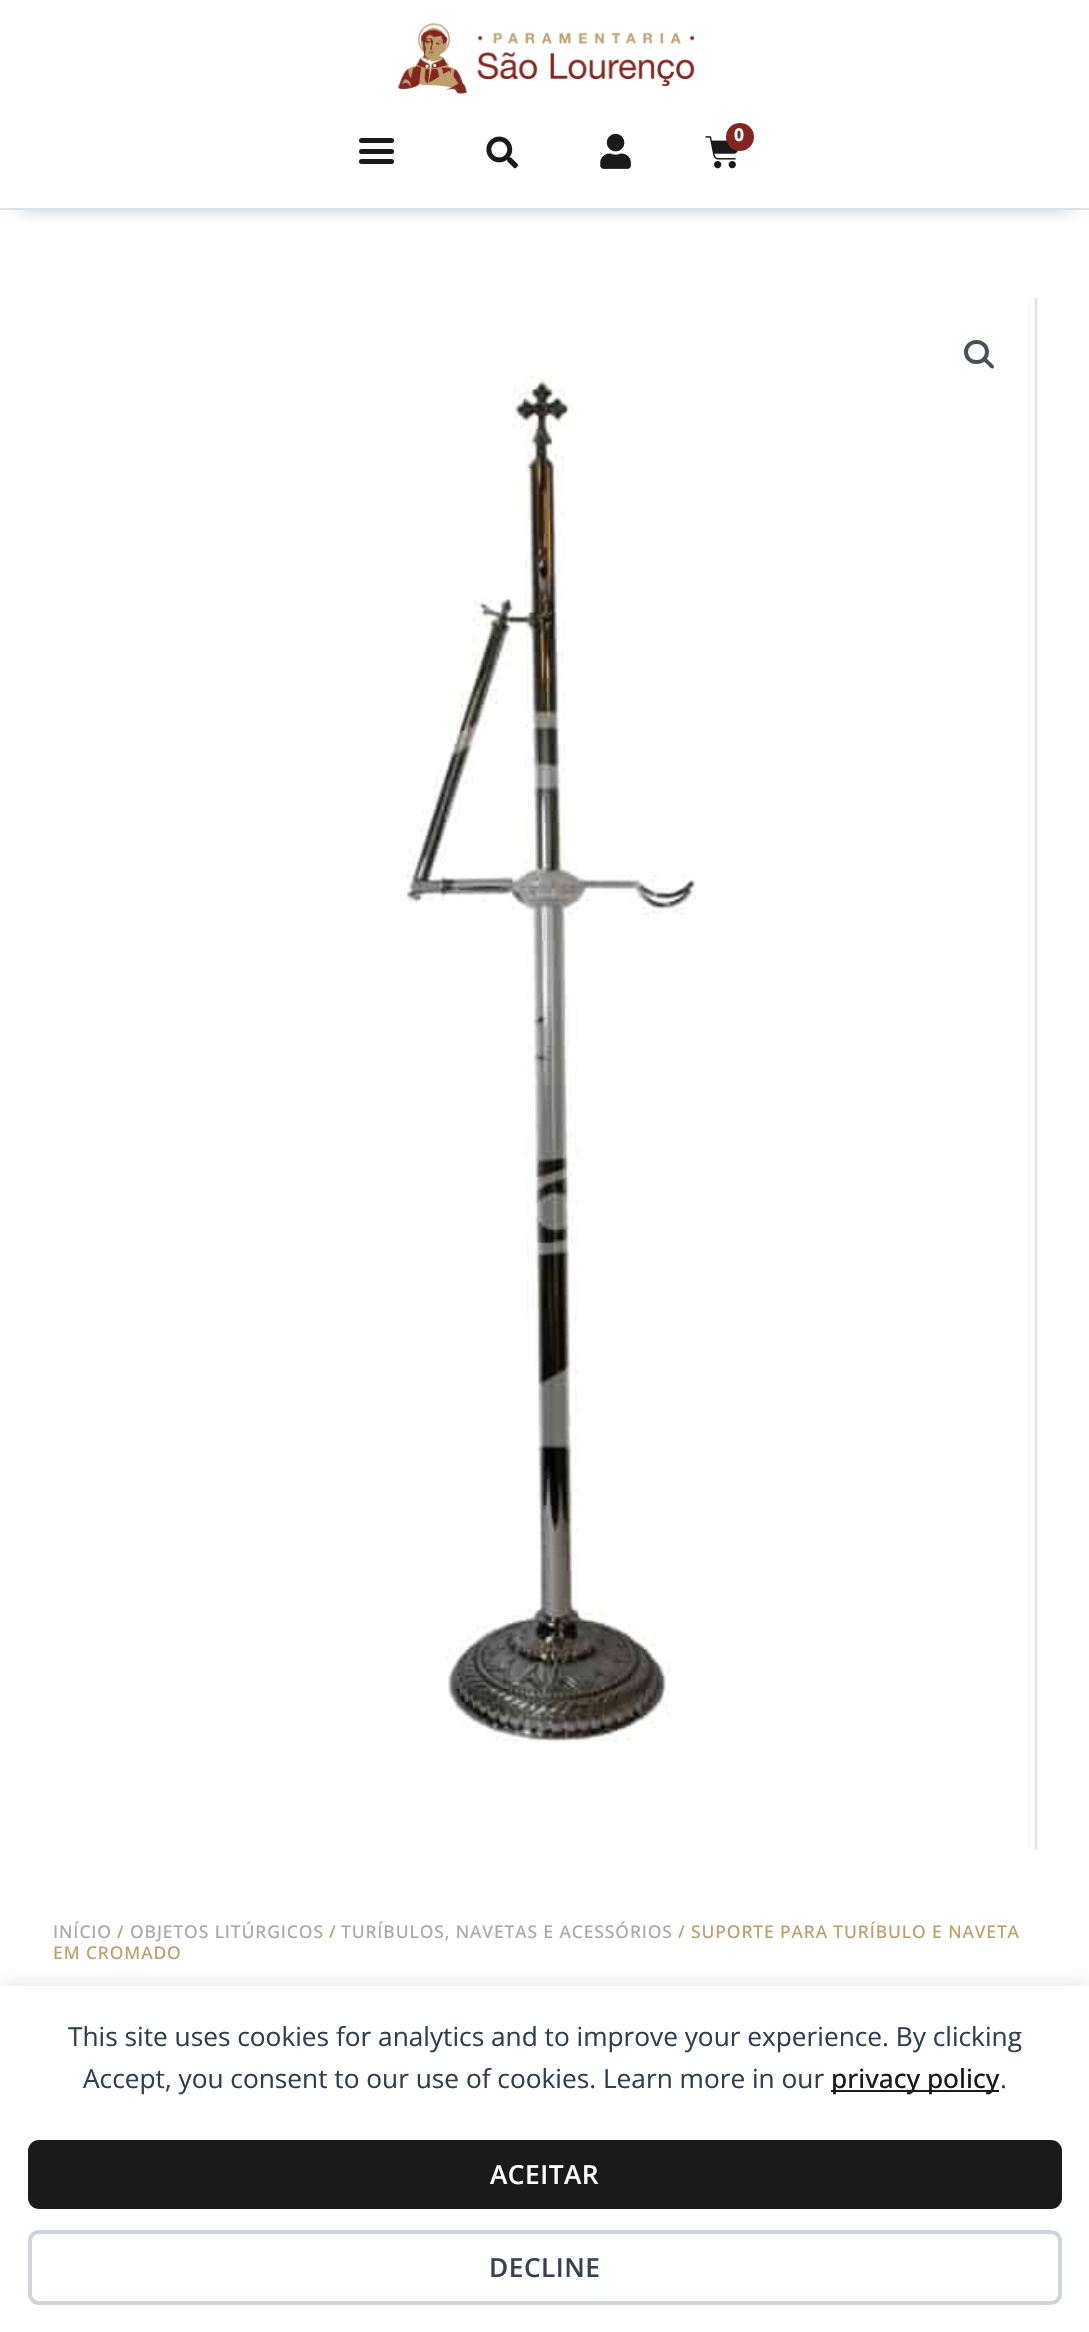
void draw(SkCanvas* canvas) {
  SkPaint paint;
  paint.setAntiAlias(true);
  auto face = [&](const char* family, int weight, float size, bool italic = false) {
    SkFontStyle style(weight, SkFontStyle::kNormal_Width,
      italic ? SkFontStyle::kItalic_Slant : SkFontStyle::kUpright_Slant);
    SkFont result(fontMgr->matchFamilyStyle(family, style), size);
    result.setSubpixel(true);
    return result;
  };
  auto writeSpaced = [&](const char* s, float x, float y, const SkFont& font, const SkPaint& ink, float letter, float word) {
    std::vector<SkGlyphID> glyphs(font.countText(s, strlen(s), SkTextEncoding::kUTF8));
    std::vector<float> xs(glyphs.size());
    font.textToGlyphs(s, strlen(s), SkTextEncoding::kUTF8, glyphs);
    font.getXPos(glyphs, xs, x);
    float extra = 0;
    for (size_t i = 0; i < glyphs.size(); i++) {
      xs[i] += extra;
      extra += letter + word * (glyphs[i] == font.unicharToGlyph(' '));
    }
    canvas->drawTextBlob(SkTextBlob::MakeFromPosHGlyphs(glyphs, xs, y, font), 0, 0, ink);
  };
  auto paste = [&](const char* path, float x, float y, float w, float h) {
    auto image = SkImages::DeferredFromEncodedData(SkData::MakeFromFileName(path));
    canvas->drawImageRect(image, SkRect::MakeXYWH(x, y, w, h), SkSamplingOptions());
  };
  auto shape = [&](const char* data, bool evenOdd = false) {
    SkPath result = *SkParsePath::FromSVGString(data);
    if (evenOdd) result.setFillType(SkPathFillType::kEvenOdd);
    return result;
  };
  canvas->clear(0xffffffff);
  canvas->save();
  canvas->clipRect(SkRect::MakeXYWH(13, 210, 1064, 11));
  paint.setColor(0x4d000000);
  paint.setMaskFilter(SkMaskFilter::MakeBlur(kNormal_SkBlurStyle, 9));
  canvas->drawRect(SkRect::MakeXYWH(21, 39, 1048, 168), paint);
  paint.setMaskFilter(nullptr);
  canvas->restore();
  paint.setColor(0xffdee2e6);
  canvas->drawRect(SkRect::MakeXYWH(0, 208, 1089, 2), paint);
  paste("img/1.png", 398, 22, 297, 72);
  paint.setColor(0xff1a1a1a);
  canvas->drawRoundRect(SkRect::MakeXYWH(359, 149, 35, 5), 2.5f, 2.5f, paint);
  canvas->drawRoundRect(SkRect::MakeXYWH(359, 138, 35, 5), 2.5f, 2.5f, paint);
  canvas->drawRoundRect(SkRect::MakeXYWH(359, 159, 35, 5), 2.5f, 2.5f, paint);
  paste("img/2.png", 486, 136, 33, 33);
  paste("img/3.png", 600, 133, 31, 36);
  paste("img/4.png", 705, 136, 33, 33);
  paint.setColor(0xff832620);
  canvas->drawCircle(740, 137, 14, paint);
  paste("img/5.png", 406, 297, 632, 1553);
  paint.setStroke(true);
  paint.setStrokeWidth(4);
  paint.setColor(0xff4b4f58);
  canvas->drawRoundRect(SkRect::MakeXYWH(966, 342, 21, 20), 10, 10, paint);
  paint.setStroke(false);
  canvas->drawPath(shape("M984 358.5C986 356.5 989 361 990 362C991 363 995.5 366 993.5 368C991.5 370 988.5 365.5 987.5 364.5C986.5 363.5 982 360.5 984 358.5Z"), paint);
  paint.setColor(0x14000000);
  paint.setMaskFilter(SkMaskFilter::MakeBlur(kNormal_SkBlurStyle, 9));
  canvas->drawRect(SkRect::MakeXYWH(0, 1983, 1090, 346), paint);
  paint.setMaskFilter(nullptr);
  paint.setColor(0xffffffff);
  canvas->drawRect(SkRect::MakeXYWH(0, 1986, 1089, 346), paint);
  paint.setColor(0xff1a1a1a);
  canvas->drawRect(SkRect::MakeXYWH(831, 2090, 168, 2), paint);
  canvas->drawRoundRect(SkRect::MakeXYWH(28, 2140, 1034, 69), 11, 11, paint);
  paint.setStroke(true);
  paint.setColor(0xffd1d5db);
  canvas->drawRoundRect(SkRect::MakeXYWH(30, 2232, 1030, 71), 9, 9, paint);
  auto f0 = face("Open Sans", 700, 17.5f);
  paint.setStroke(false);
  paint.setColor(0xffffffff);
  writeSpaced("0", 734, 141, f0, paint, 0.5f, 0);
  auto f1 = face("Open Sans", 500, 17.5f);
  paint.setColor(0xffa8a8a8);
  writeSpaced("INÍCIO", 53, 1938, f1, paint, 0.9f, 0);
  paint.setColor(0xffbc9e6c);
  writeSpaced("/", 117, 1938, f1, paint, 0.9f, 0);
  paint.setColor(0xffa8a8a8);
  writeSpaced("OBJETOS LITÚRGICOS", 130, 1938, f1, paint, 0.9f, 0);
  paint.setColor(0xffbc9e6c);
  writeSpaced("/", 329, 1938, f1, paint, 0.9f, 0);
  paint.setColor(0xffa8a8a8);
  writeSpaced("TURÍBULOS, NAVETAS E ACESSÓRIOS", 341, 1938, f1, paint, 0.9f, 0);
  paint.setColor(0xffbc9e6c);
  writeSpaced("/ SUPORTE PARA TURÍBULO E NAVETA", 678, 1938, f1, paint, 0.9f, 0);
  writeSpaced("EM CROMADO", 53, 1959, f1, paint, 0.9f, 0);
  auto f2 = face("Open Sans", 400, 26.25f);
  paint.setColor(0xff2c3e50);
  canvas->drawString("This site uses cookies for analytics and to improve your experience. By clicking", 68, 2046, f2, paint);
  canvas->drawString("Accept, you consent to our use of cookies. Learn more in our", 83, 2088, f2, paint);
  auto f3 = face("Open Sans", 500, 26.25f);
  paint.setColor(0xff1a1a1a);
  canvas->drawString("privacy policy", 831, 2088, f3, paint);
  paint.setColor(0xff2c3e50);
  canvas->drawString(".", 1000, 2088, f2, paint);
  auto f4 = face("Open Sans", 600, 26.25f);
  paint.setColor(0xffffffff);
  writeSpaced("ACEITAR", 490, 2184, f4, paint, 0.5f, 0);
  paint.setColor(0xff374151);
  writeSpaced("DECLINE", 489, 2277, f4, paint, 0.5f, 0);
}
